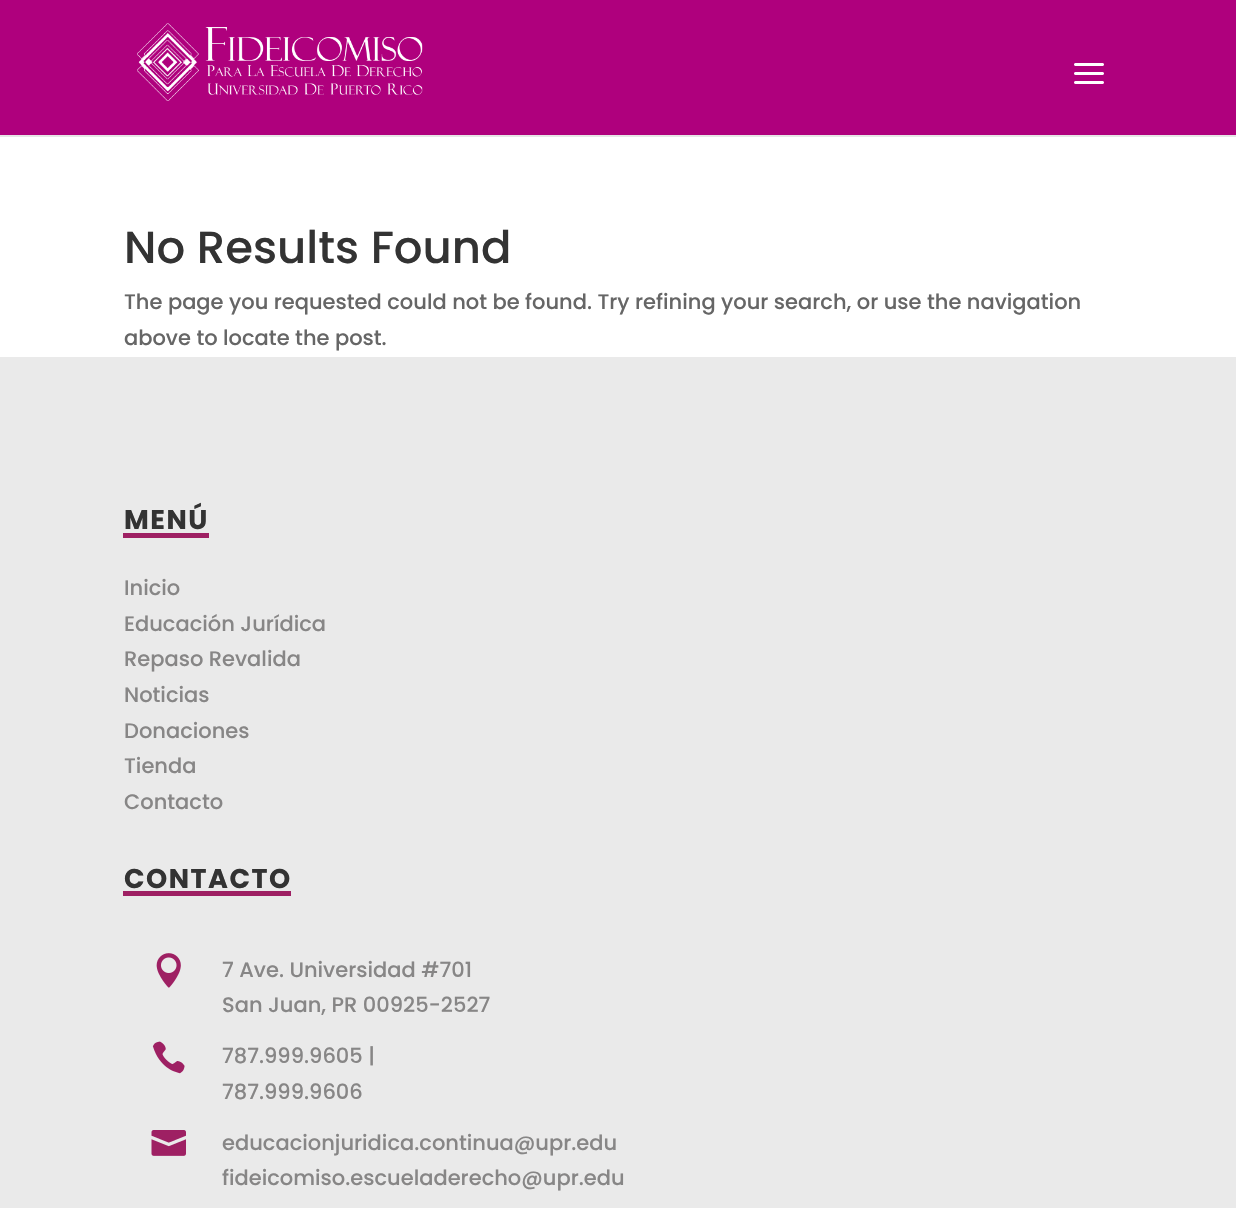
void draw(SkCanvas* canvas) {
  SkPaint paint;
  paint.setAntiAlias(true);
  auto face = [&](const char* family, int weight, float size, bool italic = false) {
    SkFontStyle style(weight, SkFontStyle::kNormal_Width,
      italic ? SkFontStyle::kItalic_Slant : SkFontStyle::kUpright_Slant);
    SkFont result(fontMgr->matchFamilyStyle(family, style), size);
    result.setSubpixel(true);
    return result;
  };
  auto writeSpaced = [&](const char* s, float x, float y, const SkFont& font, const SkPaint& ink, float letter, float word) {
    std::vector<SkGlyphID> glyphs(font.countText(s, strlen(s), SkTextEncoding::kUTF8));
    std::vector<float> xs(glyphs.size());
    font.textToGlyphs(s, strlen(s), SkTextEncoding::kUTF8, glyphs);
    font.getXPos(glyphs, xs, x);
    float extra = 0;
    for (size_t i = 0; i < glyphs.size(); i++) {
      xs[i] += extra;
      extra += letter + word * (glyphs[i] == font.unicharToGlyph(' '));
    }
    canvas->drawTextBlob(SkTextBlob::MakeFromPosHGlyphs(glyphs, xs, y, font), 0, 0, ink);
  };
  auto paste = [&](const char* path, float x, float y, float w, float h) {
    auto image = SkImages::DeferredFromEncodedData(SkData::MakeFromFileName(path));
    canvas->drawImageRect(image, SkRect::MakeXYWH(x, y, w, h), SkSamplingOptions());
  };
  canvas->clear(0xffffffff);
  paint.setColor(0xffe6e6e6);
  canvas->drawRect(SkRect::MakeXYWH(0, 135, 1236, 2), paint);
  paint.setColor(0xffaf007d);
  canvas->drawRect(SkRect::MakeXYWH(0, 0, 1236, 135), paint);
  paste("img/1.png", 137, 23, 286, 78);
  paste("img/2.png", 1074, 63, 30, 21);
  {
    const struct { float x, y, w, h; SkColor color; } items[] = {
      {0, 357, 1236, 851, 0xffeaeaea},
      {123, 533, 86, 5, 0xff9e2063},
      {123, 891, 168, 5, 0xff9e2063},
    };
    for (auto [x, y, w, h, color] : items) {
      paint.setColor(color);
      canvas->drawRect(SkRect::MakeXYWH(x, y, w, h), paint);
    }
  }
  paste("img/3.png", 156, 953, 25, 35);
  paste("img/4.png", 152, 1041, 33, 33);
  paste("img/5.png", 151, 1130, 35, 26);
  auto f0 = face("Poppins", 500, 45);
  paint.setColor(0xff333333);
  canvas->drawString("No Results Found", 124, 263, f0, paint);
  auto f1 = face("Poppins", 500, 21);
  paint.setColor(0xff666666);
  canvas->drawString("The page you requested could not be found. Try refining your search, or use the navigation", 124, 309, f1, paint);
  canvas->drawString("above to locate the post.", 124, 345, f1, paint);
  auto f2 = face("Poppins", 700, 27);
  paint.setColor(0xff333333);
  writeSpaced("MENÚ", 124, 529, f2, paint, 1.5f, 0);
  paint.setColor(0xff878686);
  {
    const struct { const char* s; float x, y; } items[] = {
      {"Inicio", 124, 595},
      {"Educación Jurídica", 124, 631},
      {"Repaso Revalida", 124, 666},
      {"Noticias", 124, 702},
      {"Donaciones", 124, 738},
      {"Tienda", 124, 773},
      {"Contacto", 124, 809},
    };
    for (auto [s, x, y] : items) {
      canvas->drawString(s, x, y, f1, paint);
    }
  }
  paint.setColor(0xff333333);
  writeSpaced("CONTACTO", 124, 888, f2, paint, 1.5f, 0);
  paint.setColor(0xff878686);
  {
    const struct { const char* s; float x, y; } items[] = {
      {"7 Ave. Universidad #701", 222, 977},
      {"San Juan, PR 00925-2527", 222, 1012},
      {"787.999.9605 |", 222, 1063},
      {"787.999.9606", 222, 1099},
      {"educacionjuridica.continua@upr.edu", 222, 1150},
      {"fideicomiso.escueladerecho@upr.edu", 222, 1185},
    };
    for (auto [s, x, y] : items) {
      canvas->drawString(s, x, y, f1, paint);
    }
  }
}
